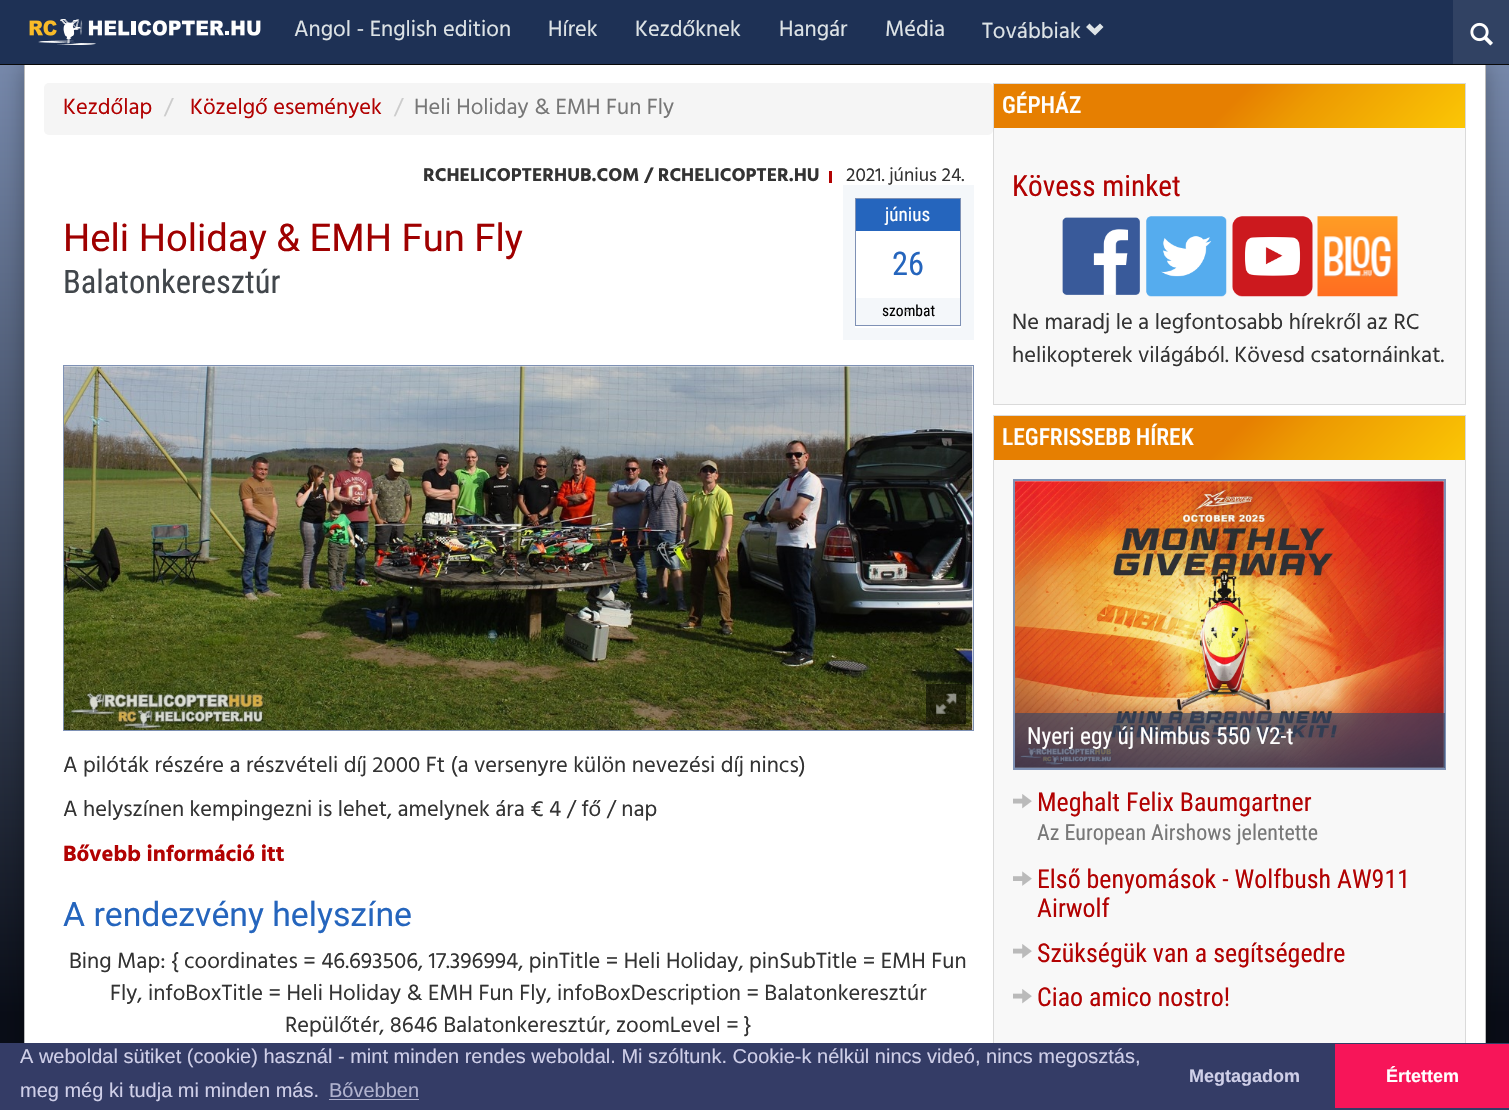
void draw(SkCanvas* canvas) {
  SkPaint paint;
  paint.setAntiAlias(true);
  auto face = [&](const char* family, int weight, float size, bool italic = false) {
    SkFontStyle style(weight, SkFontStyle::kNormal_Width,
      italic ? SkFontStyle::kItalic_Slant : SkFontStyle::kUpright_Slant);
    SkFont result(fontMgr->matchFamilyStyle(family, style), size);
    result.setSubpixel(true);
    return result;
  };
  auto writeSpaced = [&](const char* s, float x, float y, const SkFont& font, const SkPaint& ink, float letter, float word) {
    std::vector<SkGlyphID> glyphs(font.countText(s, strlen(s), SkTextEncoding::kUTF8));
    std::vector<float> xs(glyphs.size());
    font.textToGlyphs(s, strlen(s), SkTextEncoding::kUTF8, glyphs);
    font.getXPos(glyphs, xs, x);
    float extra = 0;
    for (size_t i = 0; i < glyphs.size(); i++) {
      xs[i] += extra;
      extra += letter + word * (glyphs[i] == font.unicharToGlyph(' '));
    }
    canvas->drawTextBlob(SkTextBlob::MakeFromPosHGlyphs(glyphs, xs, y, font), 0, 0, ink);
  };
  auto paste = [&](const char* path, float x, float y, float w, float h) {
    auto image = SkImages::DeferredFromEncodedData(SkData::MakeFromFileName(path));
    canvas->drawImageRect(image, SkRect::MakeXYWH(x, y, w, h), SkSamplingOptions());
  };
  auto shape = [&](const char* data, bool evenOdd = false) {
    SkPath result = *SkParsePath::FromSVGString(data);
    if (evenOdd) result.setFillType(SkPathFillType::kEvenOdd);
    return result;
  };
  canvas->clear(0xffffffff);
  {
    const SkColor colors[] = {0xff7e91b5, 0xff090d17, 0xff090d17, 0xff1e3155};
    const float stops[] = {0, 0.29f, 0.61f, 1};
    const SkPoint ends[] = {{755, 0}, {755, 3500}};
    paint.setShader(SkGradientShader::MakeLinear(ends, colors, stops, 4, SkTileMode::kClamp));
    paint.setAlpha(255);
  }
  canvas->drawRect(SkRect::MakeXYWH(0, 65, 1509, 978), paint);
  paint.setShader(nullptr);
  paint.setColor(0x59000000);
  paint.setMaskFilter(SkMaskFilter::MakeBlur(kNormal_SkBlurStyle, 12));
  canvas->drawRect(SkRect::MakeXYWH(26, 65, 1458, 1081), paint);
  paint.setMaskFilter(nullptr);
  paint.setColor(0xffffffff);
  canvas->drawRect(SkRect::MakeXYWH(25, 65, 1460, 978), paint);
  paint.setStroke(true);
  paint.setStrokeWidth(1);
  paint.setColor(0xffbababa);
  canvas->drawRect(SkRect::MakeXYWH(24.5f, 63.5f, 1461, 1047), paint);
  paint.setStroke(false);
  paint.setColor(0xff1e3155);
  canvas->drawRect(SkRect::MakeXYWH(0, 0, 1453, 64), paint);
  paint.setColor(0xff080808);
  canvas->drawRect(SkRect::MakeXYWH(0, 64, 1509, 1), paint);
  paste("img/1.png", 38, 19, 58, 26);
  paste("img/2.png", 29, 19, 232, 26);
  paint.setColor(0xff314263);
  canvas->drawRect(SkRect::MakeXYWH(1453, 0, 56, 64), paint);
  paste("img/3.png", 1470, 22, 23, 24);
  paint.setColor(0xffdde3e6);
  canvas->drawPath(shape("M1095 35.5L1103.5 27L1100 23.5L1094.5 28.5L1089.5 23.5L1086 27Z"), paint);
  paint.setColor(0xfff5f5f5);
  canvas->drawRoundRect(SkRect::MakeXYWH(44, 83, 949, 52), 5, 5, paint);
  {
    const struct { float x, y, w, h; SkColor color; } items[] = {
      {829, 171, 3, 12, 0xffb20202},
      {843, 185, 131, 155, 0xfff4f7fa},
      {855, 231, 106, 97, 0xffffffff},
    };
    for (auto [x, y, w, h, color] : items) {
      paint.setColor(color);
      canvas->drawRect(SkRect::MakeXYWH(x, y, w, h), paint);
    }
  }
  paint.setStroke(true);
  paint.setColor(0xff7e91b5);
  canvas->drawRect(SkRect::MakeXYWH(855.5f, 198.5f, 105, 127), paint);
  paint.setStroke(false);
  paint.setColor(0xff2565bd);
  canvas->drawRect(SkRect::MakeXYWH(856, 199, 104, 32), paint);
  paint.setColor(0xfff4f7fa);
  canvas->drawRect(SkRect::MakeXYWH(856, 298, 104, 27), paint);
  paint.setStroke(true);
  paint.setColor(0xff7e91b5);
  canvas->drawRect(SkRect::MakeXYWH(63.5f, 365.5f, 910, 365), paint);
  paste("img/4.png", 63, 366, 910, 364);
  paint.setStroke(false);
  paint.setColor(0x80000000);
  canvas->drawRect(SkRect::MakeXYWH(926, 684, 40, 40), paint);
  paste("img/5.png", 936, 693, 21, 21);
  paint.setColor(0xfff8f8f8);
  canvas->drawRect(SkRect::MakeXYWH(994, 128, 471, 276), paint);
  paint.setStroke(true);
  paint.setColor(0xffdadada);
  canvas->drawRect(SkRect::MakeXYWH(993.5f, 83.5f, 472, 321), paint);
  paint.setStroke(false);
  {
    const SkColor colors[] = {0xffe67f01, 0xffed9b02, 0xfffbc605};
    const float stops[] = {0.5f, 0.65f, 1};
    const SkPoint ends[] = {{1101, -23}, {1358, 234}};
    paint.setShader(SkGradientShader::MakeLinear(ends, colors, stops, 3, SkTileMode::kClamp));
    paint.setAlpha(255);
  }
  canvas->drawRect(SkRect::MakeXYWH(994, 84, 471, 44), paint);
  paste("img/6.png", 1062, 217, 78, 78);
  paste("img/7.png", 1146, 216, 81, 81);
  paste("img/8.png", 1232, 216, 81, 81);
  paste("img/9.png", 1317, 216, 81, 81);
  paint.setShader(nullptr);
  paint.setColor(0xfff8f8f8);
  canvas->drawRect(SkRect::MakeXYWH(994, 460, 471, 583), paint);
  paint.setStroke(true);
  paint.setColor(0xffdadada);
  canvas->drawRect(SkRect::MakeXYWH(993.5f, 415.5f, 472, 633), paint);
  paint.setStroke(false);
  {
    const SkColor colors[] = {0xffe67f01, 0xffed9b02, 0xfffbc605};
    const float stops[] = {0.5f, 0.65f, 1};
    const SkPoint ends[] = {{1101, 309}, {1358, 567}};
    paint.setShader(SkGradientShader::MakeLinear(ends, colors, stops, 3, SkTileMode::kClamp));
    paint.setAlpha(255);
  }
  canvas->drawRect(SkRect::MakeXYWH(994, 416, 471, 44), paint);
  paint.setStroke(true);
  paint.setShader(nullptr);
  paint.setColor(0xff7e91b5);
  canvas->drawRect(SkRect::MakeXYWH(1013.5f, 479.5f, 432, 290), paint);
  canvas->drawRect(SkRect::MakeXYWH(1014.5f, 480.5f, 430, 288), paint);
  paste("img/10.png", 1015, 481, 429, 287);
  paint.setStroke(false);
  paint.setColor(0xa1334465);
  canvas->drawRect(SkRect::MakeXYWH(1015, 713, 430, 55), paint);
  paste("img/11.png", 1013, 794, 19, 15);
  paste("img/12.png", 1013, 871, 19, 15);
  paste("img/11.png", 1013, 944, 19, 15);
  paste("img/11.png", 1013, 989, 19, 15);
  {
    const struct { float x, y, w, h; SkColor color; } items[] = {
      {0, 1043, 1509, 67, 0xff343c66},
      {329, 1099, 90, 1, 0xffb0b2ce},
      {1335, 1044, 174, 64, 0xfff71559},
    };
    for (auto [x, y, w, h, color] : items) {
      paint.setColor(color);
      canvas->drawRect(SkRect::MakeXYWH(x, y, w, h), paint);
    }
  }
  auto f0 = face("Hind", 400, 22.5f);
  paint.setColor(0xffdde3e6);
  {
    const struct { const char* s; float x, y; } items[] = {
      {"Angol - English edition", 294, 36},
      {"Hírek", 548, 36},
      {"Kezdőknek", 635, 36},
      {"Hangár", 779, 36},
      {"Média", 885, 36},
      {"Továbbiak", 982, 38},
    };
    for (auto [s, x, y] : items) {
      canvas->drawString(s, x, y, f0, paint);
    }
  }
  paint.setColor(0xffb20202);
  canvas->drawString("Kezdőlap", 63, 114, f0, paint);
  paint.setColor(0xffcccccc);
  canvas->drawString("/", 164, 114, f0, paint);
  paint.setColor(0xffb20202);
  canvas->drawString("Közelgő események", 190, 114, f0, paint);
  paint.setColor(0xffcccccc);
  canvas->drawString("/", 394, 114, f0, paint);
  paint.setColor(0xff777777);
  canvas->drawString("Heli Holiday & EMH Fun Fly", 414, 114, f0, paint);
  auto f1 = face("Hind", 700, 19.1f);
  paint.setColor(0xff333333);
  canvas->drawString("RCHELICOPTERHUB.COM / RCHELICOPTER.HU", 423, 181, f1, paint);
  auto f2 = face("Hind", 400, 19.1f);
  canvas->drawString("2021. június 24.", 846, 181, f2, paint);
  auto f3 = face("Roboto", 400, 38.25f);
  paint.setColor(0xff9f0000);
  canvas->drawString("Heli Holiday & EMH Fun Fly", 63, 251, f3, paint);
  auto f4 = face("Roboto Condensed", 400, 32.5f);
  paint.setColor(0xff41464b);
  canvas->drawString("Balatonkeresztúr", 63, 293, f4, paint);
  auto f5 = face("Roboto Condensed", 400, 19.1f);
  paint.setColor(0xffffffff);
  canvas->drawString("június", 885, 221, f5, paint);
  paint.setColor(0xff2565bd);
  canvas->drawString("26", 892, 275, f4, paint);
  auto f6 = face("Roboto Condensed", 400, 15.5f);
  paint.setColor(0xff000000);
  canvas->drawString("szombat", 882, 316, f6, paint);
  paint.setColor(0xffa6a8aa);
  canvas->drawString("-", 905, 317, f5, paint);
  paint.setColor(0xff333333);
  canvas->drawString("A pilóták részére a részvételi díj 2000 Ft (a versenyre külön nevezési díj nincs)", 63, 772, f0, paint);
  canvas->drawString("A helyszínen kempingezni is lehet, amelynek ára € 4 / fő / nap", 63, 816, f0, paint);
  auto f7 = face("Hind", 700, 22.5f);
  paint.setColor(0xffb20202);
  canvas->drawString("Bővebb információ itt", 63, 861, f7, paint);
  auto f8 = face("Roboto", 400, 33.75f);
  paint.setColor(0xff2565bd);
  canvas->drawString("A rendezvény helyszíne", 63, 926, f8, paint);
  paint.setColor(0xff333333);
  {
    const struct { const char* s; float x, y; } items[] = {
      {"Bing Map: { coordinates = 46.693506, 17.396994, pinTitle = Heli Holiday, pinSubTitle = EMH Fun", 69, 968},
      {"Fly, infoBoxTitle = Heli Holiday & EMH Fun Fly, infoBoxDescription = Balatonkeresztúr", 110, 1000},
      {"Repülőtér, 8646 Balatonkeresztúr, zoomLevel = }", 285, 1032},
    };
    for (auto [s, x, y] : items) {
      canvas->drawString(s, x, y, f0, paint);
    }
  }
  auto f9 = face("Roboto Condensed", 500, 23.5f);
  paint.setColor(0xffffffff);
  canvas->drawString("GÉPHÁZ", 1002, 113, f9, paint);
  auto f10 = face("Roboto Condensed", 400, 29.25f);
  paint.setColor(0xffb20202);
  canvas->drawString("Kövess minket", 1012, 196, f10, paint);
  paint.setColor(0xff333333);
  canvas->drawString("Ne maradj le a legfontosabb hírekről az RC", 1012, 329, f0, paint);
  canvas->drawString("helikopterek világából. Kövesd csatornáinkat.", 1012, 362, f0, paint);
  paint.setColor(0xffffffff);
  writeSpaced("LEGFRISSEBB HÍREK", 1002, 445, f9, paint, 0, -1);
  auto f11 = face("Roboto Condensed", 400, 23.4f);
  canvas->drawString("Nyerj egy új Nimbus 550 V2-t", 1027, 744, f11, paint);
  auto f12 = face("Roboto Condensed", 400, 25.9f);
  paint.setColor(0xffb20202);
  canvas->drawString("Meghalt Felix Baumgartner", 1037, 811, f12, paint);
  auto f13 = face("Roboto Condensed", 400, 22);
  paint.setColor(0xff777777);
  canvas->drawString("Az European Airshows jelentette", 1037, 840, f13, paint);
  paint.setColor(0xffb20202);
  {
    const struct { const char* s; float x, y; } items[] = {
      {"Első benyomások - Wolfbush AW911", 1037, 888},
      {"Airwolf", 1037, 917},
      {"Szükségük van a segítségedre", 1037, 962},
      {"Ciao amico nostro!", 1037, 1006},
    };
    for (auto [s, x, y] : items) {
      canvas->drawString(s, x, y, f12, paint);
    }
  }
  auto f14 = face("Liberation Sans", 400, 20);
  paint.setColor(0xffcfcfe8);
  canvas->drawString("A weboldal sütiket (cookie) használ - mint minden rendes weboldal. Mi szóltunk. Cookie-k nélkül nincs videó, nincs megosztás,", 20, 1063, f14, paint);
  canvas->drawString("meg még ki tudja mi minden más.", 20, 1097, f14, paint);
  paint.setColor(0xffb0b2ce);
  canvas->drawString("Bővebben", 329, 1097, f14, paint);
  auto f15 = face("Liberation Sans", 700, 18);
  paint.setColor(0xffcfcfe8);
  canvas->drawString("Megtagadom", 1189, 1082, f15, paint);
  paint.setColor(0xffffffff);
  canvas->drawString("Értettem", 1386, 1082, f15, paint);
}
